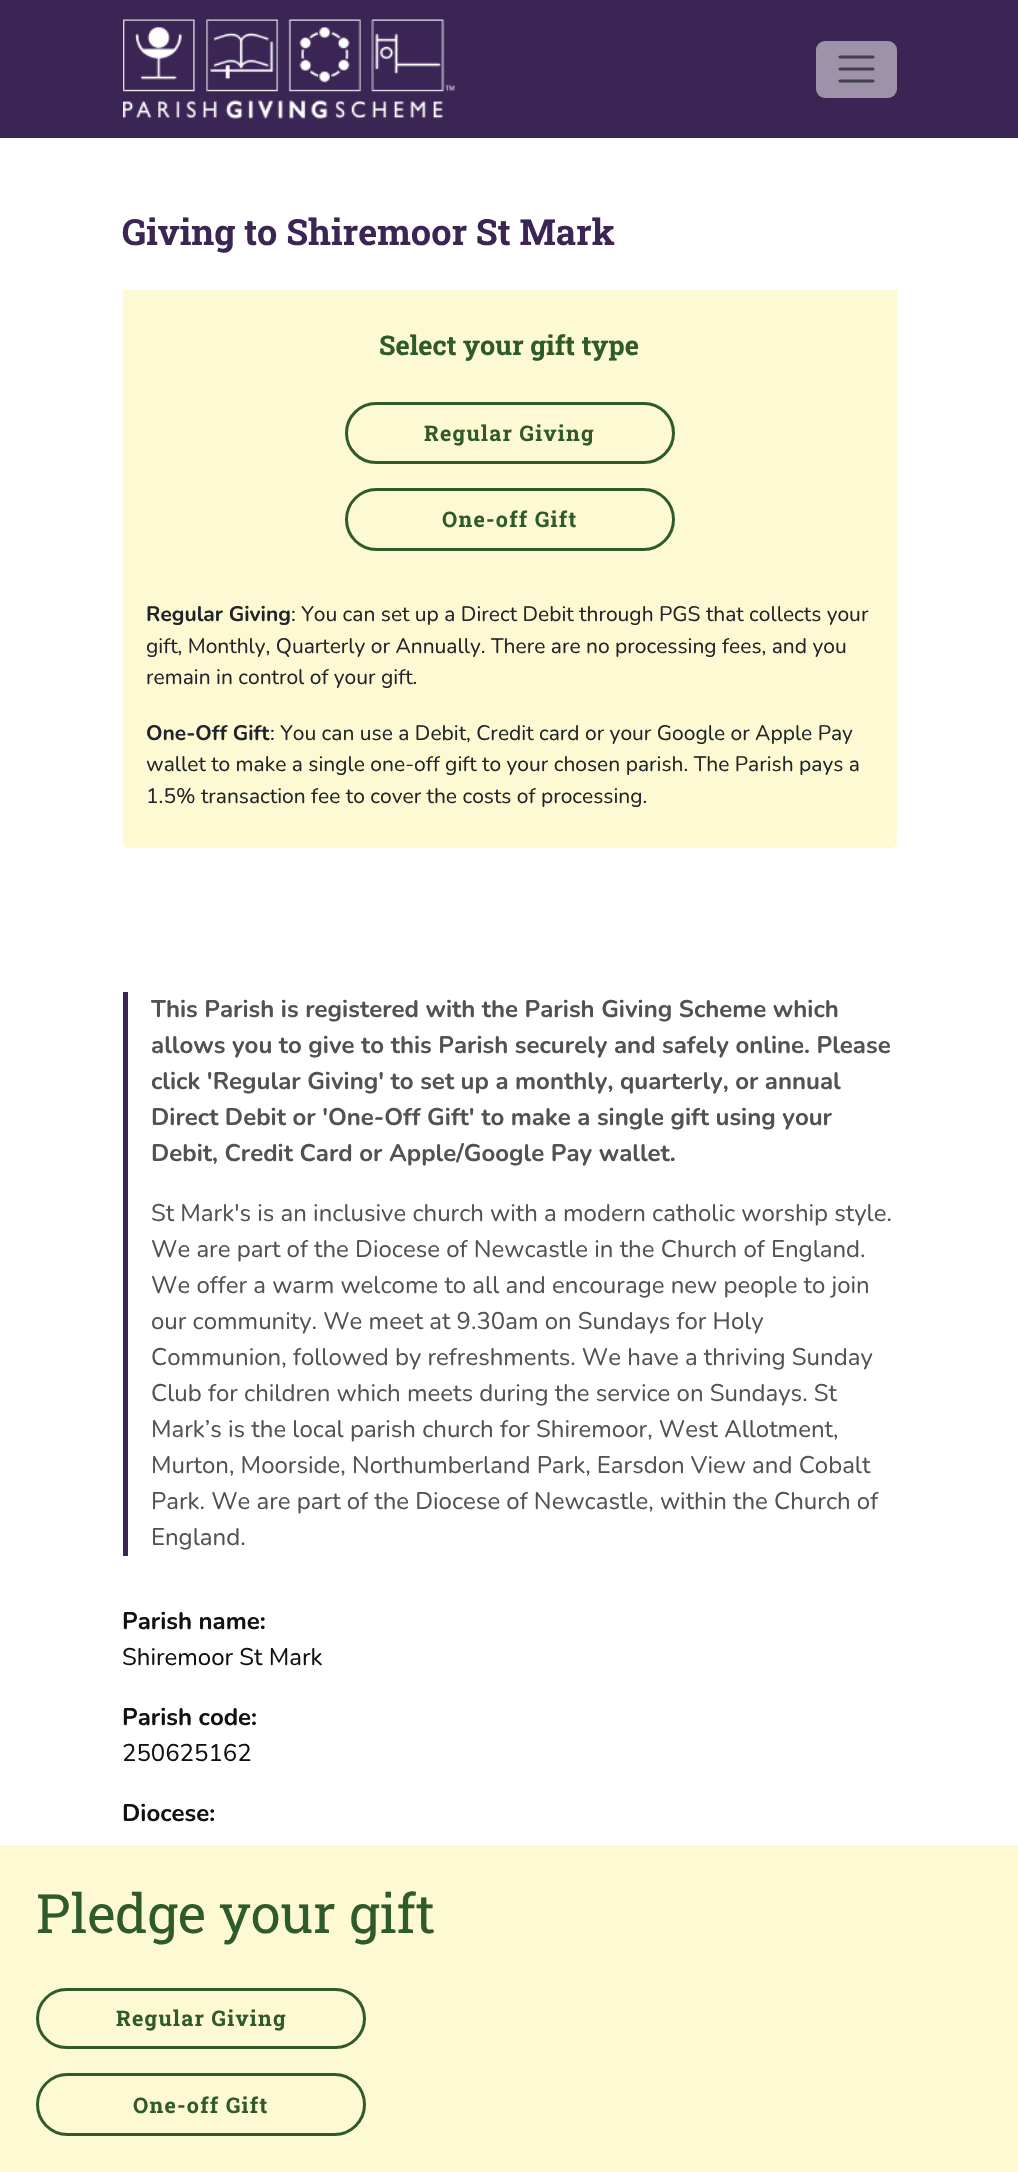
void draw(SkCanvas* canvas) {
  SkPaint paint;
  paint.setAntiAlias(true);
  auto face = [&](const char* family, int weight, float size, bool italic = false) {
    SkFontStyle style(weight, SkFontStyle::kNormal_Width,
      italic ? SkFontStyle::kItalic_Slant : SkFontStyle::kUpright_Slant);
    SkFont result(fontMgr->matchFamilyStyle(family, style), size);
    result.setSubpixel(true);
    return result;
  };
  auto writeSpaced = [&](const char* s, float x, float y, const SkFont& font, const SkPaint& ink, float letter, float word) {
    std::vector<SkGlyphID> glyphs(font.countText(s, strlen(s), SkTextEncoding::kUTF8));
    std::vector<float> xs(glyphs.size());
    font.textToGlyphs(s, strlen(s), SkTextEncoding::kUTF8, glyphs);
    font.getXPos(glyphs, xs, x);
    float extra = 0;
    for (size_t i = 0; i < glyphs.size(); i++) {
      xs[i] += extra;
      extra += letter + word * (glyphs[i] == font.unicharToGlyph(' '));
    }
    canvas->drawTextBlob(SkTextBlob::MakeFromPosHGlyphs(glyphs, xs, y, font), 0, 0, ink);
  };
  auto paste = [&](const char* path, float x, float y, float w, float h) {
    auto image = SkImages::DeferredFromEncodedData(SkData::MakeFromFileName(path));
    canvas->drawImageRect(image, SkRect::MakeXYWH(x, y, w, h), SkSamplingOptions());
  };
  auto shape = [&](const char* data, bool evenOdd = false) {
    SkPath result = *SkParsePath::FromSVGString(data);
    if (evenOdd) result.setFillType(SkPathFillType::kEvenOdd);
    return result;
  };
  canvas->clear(0xffffffff);
  paint.setColor(0xff3a2555);
  canvas->drawRect(SkRect::MakeXYWH(0, 0, 1018, 138), paint);
  paste("img/1.png", 123, 19, 332, 100);
  paint.setColor(0xff9d92aa);
  canvas->drawRoundRect(SkRect::MakeXYWH(816, 41, 81, 57), 9, 9, paint);
  paint.setStroke(true);
  paint.setStrokeWidth(3);
  paint.setStrokeCap(SkPaint::kRound_Cap);
  paint.setColor(0xff404049);
  canvas->drawPath(shape("M840 57H873M840 69H873M840 81H873"), paint);
  paint.setStroke(false);
  paint.setColor(0xfffdf9d2);
  canvas->drawRect(SkRect::MakeXYWH(123, 290, 774, 76), paint);
  canvas->drawPath(shape("M123 366H897V842C897 845.5 894.5 848 891 848H129C125.5 848 123 845.5 123 842Z"), paint);
  paint.setStroke(true);
  paint.setStrokeCap(SkPaint::kButt_Cap);
  paint.setColor(0xff2f5a2c);
  canvas->drawRoundRect(SkRect::MakeXYWH(346.5f, 403.5f, 327, 59), 29.5f, 29.5f, paint);
  canvas->drawRoundRect(SkRect::MakeXYWH(346.5f, 489.5f, 327, 60), 30, 30, paint);
  paint.setStroke(false);
  paint.setColor(0xfffdf9d2);
  canvas->drawRect(SkRect::MakeXYWH(0, 1845, 1018, 327), paint);
  paint.setStroke(true);
  paint.setColor(0xff2f5a2c);
  canvas->drawRoundRect(SkRect::MakeXYWH(37.5f, 1989.5f, 327, 58), 29, 29, paint);
  canvas->drawRoundRect(SkRect::MakeXYWH(37.5f, 2074.5f, 327, 60), 30, 30, paint);
  paint.setStroke(false);
  paint.setColor(0xff3a2555);
  canvas->drawRect(SkRect::MakeXYWH(123, 992, 5, 564), paint);
  auto f0 = face("Roboto Slab", 700, 36);
  canvas->drawString("Giving to Shiremoor St Mark", 122, 245, f0, paint);
  auto f1 = face("Roboto Slab", 700, 27);
  paint.setColor(0xff2f5a2c);
  canvas->drawString("Select your gift type", 379, 355, f1, paint);
  auto f2 = face("Roboto Slab", 700, 21.5f);
  writeSpaced("Regular Giving", 424, 441, f2, paint, 1.25f, 0);
  writeSpaced("One-off Gift", 442, 527, f2, paint, 1.25f, 0);
  auto f3 = face("Nunito", 700, 21);
  paint.setColor(0xff212529);
  canvas->drawString("Regular Giving", 146, 621, f3, paint);
  auto f4 = face("Nunito", 400, 21);
  {
    const struct { const char* s; float x, y; } items[] = {
      {": You can set up a Direct Debit through PGS that collects your", 291, 621},
      {"gift, Monthly, Quarterly or Annually. There are no processing fees, and you", 146, 653},
      {"remain in control of your gift.", 146, 684},
    };
    for (auto [s, x, y] : items) {
      canvas->drawString(s, x, y, f4, paint);
    }
  }
  canvas->drawString("One-Off Gift", 146, 740, f3, paint);
  {
    const struct { const char* s; float x, y; } items[] = {
      {": You can use a Debit, Credit card or your Google or Apple Pay", 270, 740},
      {"wallet to make a single one-off gift to your chosen parish. The Parish pays a", 146, 771},
      {"1.5% transaction fee to cover the costs of processing.", 146, 803},
    };
    for (auto [s, x, y] : items) {
      canvas->drawString(s, x, y, f4, paint);
    }
  }
  auto f5 = face("Roboto Slab", 400, 54);
  paint.setColor(0xff2f5a2c);
  canvas->drawString("Pledge your gift", 36, 1933, f5, paint);
  writeSpaced("Regular Giving", 116, 2026, f2, paint, 1.25f, 0);
  writeSpaced("One-off Gift", 133, 2113, f2, paint, 1.25f, 0);
  auto f6 = face("Nunito", 700, 24);
  paint.setColor(0xff525252);
  {
    const struct { const char* s; float x, y; } items[] = {
      {"This Parish is registered with the Parish Giving Scheme which", 151, 1017},
      {"allows you to give to this Parish securely and safely online. Please", 151, 1053},
      {"click 'Regular Giving' to set up a monthly, quarterly, or annual", 151, 1089},
      {"Direct Debit or 'One-Off Gift' to make a single gift using your", 151, 1125},
      {"Debit, Credit Card or Apple/Google Pay wallet.", 151, 1161},
    };
    for (auto [s, x, y] : items) {
      canvas->drawString(s, x, y, f6, paint);
    }
  }
  auto f7 = face("Nunito", 400, 24);
  {
    const struct { const char* s; float x, y; } items[] = {
      {"St Mark's is an inclusive church with a modern catholic worship style.", 151, 1221},
      {"We are part of the Diocese of Newcastle in the Church of England.", 151, 1257},
      {"We offer a warm welcome to all and encourage new people to join", 151, 1293},
      {"our community. We meet at 9.30am on Sundays for Holy", 151, 1329},
      {"Communion, followed by refreshments. We have a thriving Sunday", 151, 1365},
      {"Club for children which meets during the service on Sundays. St", 151, 1401},
      {"Mark’s is the local parish church for Shiremoor, West Allotment,", 151, 1437},
      {"Murton, Moorside, Northumberland Park, Earsdon View and Cobalt", 151, 1473},
      {"Park. We are part of the Diocese of Newcastle, within the Church of", 151, 1509},
      {"England.", 151, 1545},
    };
    for (auto [s, x, y] : items) {
      canvas->drawString(s, x, y, f7, paint);
    }
  }
  paint.setColor(0xff111111);
  canvas->drawString("Parish name:", 122, 1629, f6, paint);
  canvas->drawString("Shiremoor St Mark", 122, 1665, f7, paint);
  canvas->drawString("Parish code:", 122, 1725, f6, paint);
  canvas->drawString("250625162", 122, 1761, f7, paint);
  canvas->drawString("Diocese:", 122, 1821, f6, paint);
}
